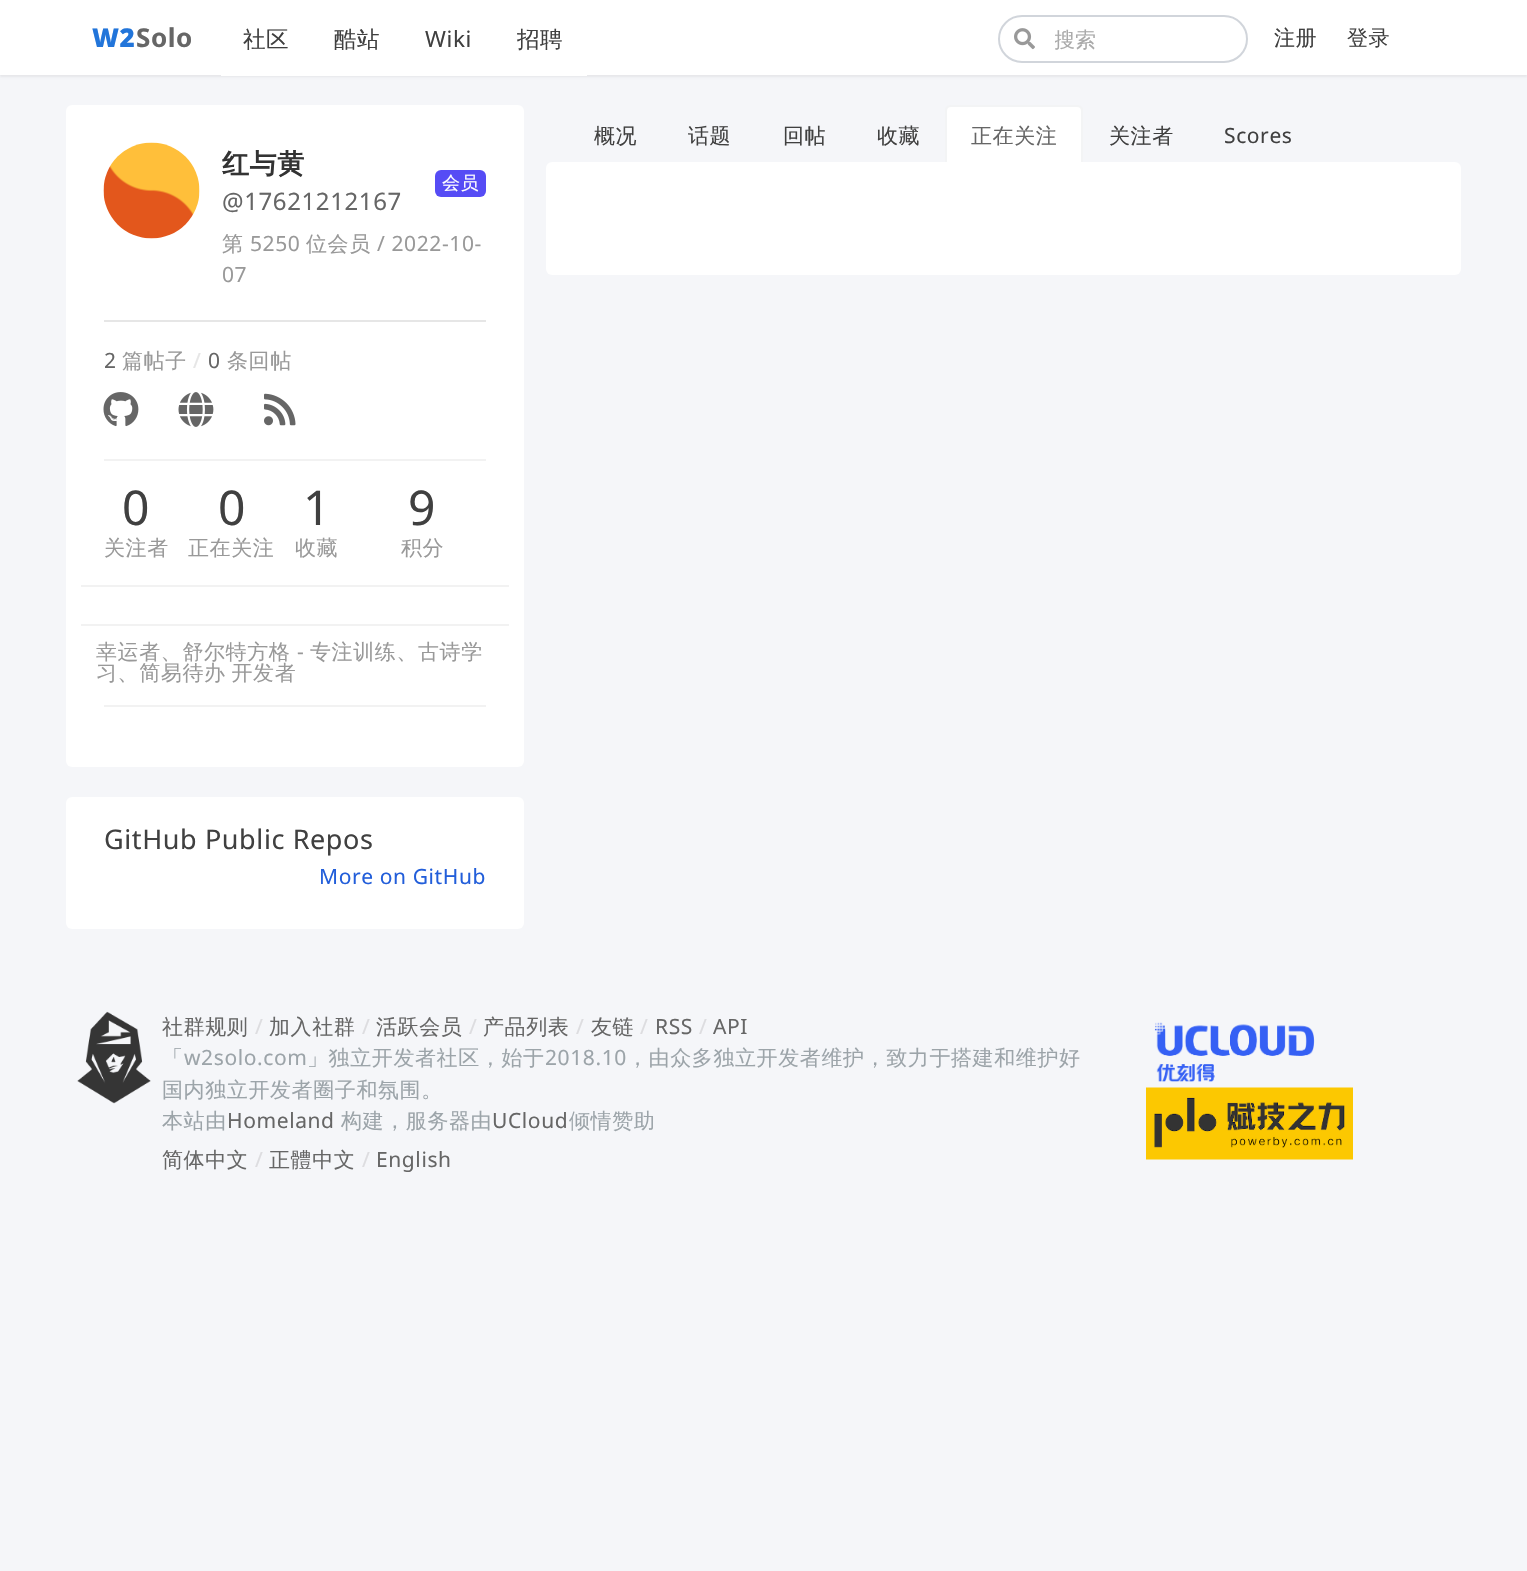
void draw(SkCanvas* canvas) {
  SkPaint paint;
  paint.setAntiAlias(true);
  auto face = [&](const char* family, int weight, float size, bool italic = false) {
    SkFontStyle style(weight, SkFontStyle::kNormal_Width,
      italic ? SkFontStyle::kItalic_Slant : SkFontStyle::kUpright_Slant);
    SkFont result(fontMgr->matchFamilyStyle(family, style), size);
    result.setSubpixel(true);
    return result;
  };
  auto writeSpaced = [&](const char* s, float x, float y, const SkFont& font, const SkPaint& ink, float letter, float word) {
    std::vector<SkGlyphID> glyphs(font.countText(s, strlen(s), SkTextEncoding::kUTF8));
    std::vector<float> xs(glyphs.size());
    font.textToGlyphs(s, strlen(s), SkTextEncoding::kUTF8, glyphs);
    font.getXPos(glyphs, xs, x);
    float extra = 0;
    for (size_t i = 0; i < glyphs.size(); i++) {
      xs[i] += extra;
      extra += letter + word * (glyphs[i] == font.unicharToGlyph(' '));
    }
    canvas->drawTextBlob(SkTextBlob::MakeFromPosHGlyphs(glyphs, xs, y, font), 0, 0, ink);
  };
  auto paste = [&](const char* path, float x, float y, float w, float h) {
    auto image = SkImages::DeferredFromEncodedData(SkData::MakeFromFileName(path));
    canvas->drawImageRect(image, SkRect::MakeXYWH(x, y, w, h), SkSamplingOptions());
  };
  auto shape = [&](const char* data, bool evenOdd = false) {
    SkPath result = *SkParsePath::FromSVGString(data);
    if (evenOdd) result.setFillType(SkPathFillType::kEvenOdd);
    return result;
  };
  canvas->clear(0xfff5f6f9);
  paint.setColor(0x0f000000);
  paint.setMaskFilter(SkMaskFilter::MakeBlur(kNormal_SkBlurStyle, 1));
  canvas->drawRect(SkRect::MakeXYWH(0, 2, 1527, 75), paint);
  paint.setMaskFilter(nullptr);
  paint.setColor(0xffffffff);
  canvas->drawRect(SkRect::MakeXYWH(0, 0, 1527, 75), paint);
  canvas->drawRect(SkRect::MakeXYWH(221, 75, 366, 1), paint);
  paint.setStroke(true);
  paint.setStrokeWidth(2);
  paint.setColor(0xffd1d5db);
  canvas->drawRoundRect(SkRect::MakeXYWH(999, 16, 248, 46), 23, 23, paint);
  paste("img/1.png", 1014, 28, 21, 22);
  paint.setStroke(false);
  paint.setColor(0xffffffff);
  canvas->drawPath(shape("M951 106H1077C1080 106 1082 108 1082 111V163H946V111C946 108 948 106 951 106Z"), paint);
  paint.setStroke(true);
  paint.setColor(0xfff3f4f5);
  canvas->drawPath(shape("M951 106H1077C1080 106 1082 108 1082 111V163H946V111C946 108 948 106 951 106Z"), paint);
  paint.setStroke(false);
  paint.setColor(0xffffffff);
  canvas->drawRoundRect(SkRect::MakeXYWH(546, 162, 915, 113), 6, 6, paint);
  canvas->drawRoundRect(SkRect::MakeXYWH(66, 105, 458, 662), 6, 6, paint);
  paste("img/2.png", 103, 142, 97, 97);
  paint.setColor(0xff564cf5);
  canvas->drawRoundRect(SkRect::MakeXYWH(435, 170, 51, 27), 6, 6, paint);
  paint.setColor(0xffe6e6e6);
  canvas->drawRect(SkRect::MakeXYWH(104, 320, 382, 2), paint);
  paste("img/3.png", 103, 392, 36, 35);
  paste("img/4.png", 178, 392, 36, 35);
  paste("img/5.png", 264, 393, 32, 33);
  {
    const struct { float x, y, w, h; SkColor color; } items[] = {
      {104, 459, 382, 2, 0xfff2f2f2},
      {81, 585, 428, 2, 0xfff2f2f2},
      {81, 624, 428, 2, 0xfff2f2f2},
      {104, 705, 382, 2, 0xfff2f2f2},
    };
    for (auto [x, y, w, h, color] : items) {
      paint.setColor(color);
      canvas->drawRect(SkRect::MakeXYWH(x, y, w, h), paint);
    }
  }
  paint.setColor(0xffffffff);
  canvas->drawRoundRect(SkRect::MakeXYWH(66, 797, 458, 132), 6, 6, paint);
  paste("img/6.png", 77, 1011, 74, 93);
  paste("img/7.png", 1154, 1022, 161, 60);
  paste("img/8.png", 1146, 1087, 207, 73);
  auto f0 = face("Noto Sans", 900, 26);
  paint.setColor(0xff2275da);
  writeSpaced("W2", 92, 47, f0, paint, 0.6f, 0);
  auto f1 = face("Noto Sans", 700, 26);
  paint.setColor(0xff666666);
  writeSpaced("Solo", 136, 47, f1, paint, 0.6f, 0);
  auto f2 = face("WenQuanYi Zen Hei", 500, 22.5f);
  paint.setColor(0xff404040);
  writeSpaced("社区", 243, 47, f2, paint, 0.6f, 0);
  writeSpaced("酷站", 334, 47, f2, paint, 0.6f, 0);
  auto f3 = face("Noto Sans", 400, 22.5f);
  writeSpaced("Wiki", 425, 47, f3, paint, 0.6f, 0);
  writeSpaced("招聘", 517, 47, f2, paint, 0.6f, 0);
  canvas->save();
  canvas->clipRect(SkRect::MakeXYWH(1055, 24, 174, 30));
  auto f4 = face("WenQuanYi Zen Hei", 500, 21);
  paint.setColor(0xffaaaaaa);
  canvas->drawString("搜索", 1054, 47, f4, paint);
  canvas->restore();
  paint.setColor(0xff404040);
  {
    const struct { const char* s; float x, y; } items[] = {
      {"注册", 1274, 45},
      {"登录", 1347, 45},
      {"概况", 594, 143},
      {"话题", 688, 143},
      {"回帖", 783, 143},
      {"收藏", 877, 143},
    };
    for (auto [s, x, y] : items) {
      writeSpaced(s, x, y, f4, paint, 0.6f, 0);
    }
  }
  paint.setColor(0xff666666);
  writeSpaced("正在关注", 971, 143, f4, paint, 0.6f, 0);
  paint.setColor(0xff404040);
  writeSpaced("关注者", 1109, 143, f4, paint, 0.6f, 0);
  auto f5 = face("Noto Sans", 400, 21);
  writeSpaced("Scores", 1224, 143, f5, paint, 0.6f, 0);
  auto f6 = face("WenQuanYi Zen Hei", 700, 27);
  paint.setColor(0xff333333);
  writeSpaced("红与黄", 222, 173, f6, paint, 0.6f, 0);
  auto f7 = face("Noto Sans", 400, 24);
  paint.setColor(0xff666666);
  writeSpaced("@17621212167", 222, 210, f7, paint, 0.6f, 0);
  auto f8 = face("WenQuanYi Zen Hei", 500, 18);
  paint.setColor(0xffffffff);
  writeSpaced("会员", 442, 189, f8, paint, 0.6f, 0);
  paint.setColor(0xff999999);
  writeSpaced("第", 222, 251, f4, paint, 0.6f, 0);
  writeSpaced("5250", 250, 251, f5, paint, 0.6f, 0);
  writeSpaced("位会员", 306, 251, f4, paint, 0.6f, 0);
  writeSpaced("/ 2022-10-", 377, 251, f5, paint, 0.6f, 0);
  writeSpaced("07", 222, 282, f5, paint, 0.6f, 0);
  paint.setColor(0xff666666);
  writeSpaced("2", 104, 368, f5, paint, 0.6f, 0);
  paint.setColor(0xff999999);
  writeSpaced("篇帖子", 122, 368, f4, paint, 0.6f, 0);
  paint.setColor(0xffe6e6e6);
  writeSpaced("/", 193, 368, f5, paint, 0.6f, 0);
  paint.setColor(0xff666666);
  writeSpaced("0", 208, 368, f5, paint, 0.6f, 0);
  paint.setColor(0xff999999);
  writeSpaced("条回帖", 227, 368, f4, paint, 0.6f, 0);
  auto f9 = face("Noto Sans", 400, 48);
  paint.setColor(0xff404040);
  writeSpaced("0", 122, 525, f9, paint, 0.6f, 0);
  paint.setColor(0xff999999);
  writeSpaced("关注者", 104, 555, f4, paint, 0.6f, 0);
  paint.setColor(0xff404040);
  writeSpaced("0", 218, 525, f9, paint, 0.6f, 0);
  paint.setColor(0xff999999);
  writeSpaced("正在关注", 188, 555, f4, paint, 0.6f, 0);
  paint.setColor(0xff404040);
  writeSpaced("1", 303, 525, f9, paint, 0.6f, 0);
  paint.setColor(0xff999999);
  writeSpaced("收藏", 295, 555, f4, paint, 0.6f, 0);
  paint.setColor(0xff404040);
  writeSpaced("9", 408, 525, f9, paint, 0.6f, 0);
  paint.setColor(0xff999999);
  writeSpaced("积分", 401, 555, f4, paint, 0.6f, 0);
  writeSpaced("幸运者、舒尔特方格", 96, 659, f4, paint, 0.6f, 0);
  writeSpaced("-", 297, 659, f5, paint, 0.6f, 0);
  writeSpaced("专注训练、古诗学", 310, 659, f4, paint, 0.6f, 0);
  writeSpaced("习、简易待办 开发者", 96, 680, f4, paint, 0.6f, -1);
  auto f10 = face("Noto Sans", 400, 27);
  paint.setColor(0xff404040);
  writeSpaced("GitHub Public Repos", 104, 849, f10, paint, 0.6f, 0);
  paint.setColor(0xff225eda);
  writeSpaced("More on GitHub", 319, 884, f5, paint, 0.6f, 0);
  paint.setColor(0xff666666);
  writeSpaced("社群规则", 162, 1034, f4, paint, 0.6f, 0);
  paint.setColor(0xffdddde0);
  writeSpaced("/", 255, 1034, f5, paint, 0.6f, 0);
  paint.setColor(0xff666666);
  writeSpaced("加入社群", 269, 1034, f4, paint, 0.6f, 0);
  paint.setColor(0xffdddde0);
  writeSpaced("/", 362, 1034, f5, paint, 0.6f, 0);
  paint.setColor(0xff666666);
  writeSpaced("活跃会员", 376, 1034, f4, paint, 0.6f, 0);
  paint.setColor(0xffdddde0);
  writeSpaced("/", 469, 1034, f5, paint, 0.6f, 0);
  paint.setColor(0xff666666);
  writeSpaced("产品列表", 483, 1034, f4, paint, 0.6f, 0);
  paint.setColor(0xffdddde0);
  writeSpaced("/", 576, 1034, f5, paint, 0.6f, 0);
  paint.setColor(0xff666666);
  writeSpaced("友链", 591, 1034, f4, paint, 0.6f, 0);
  paint.setColor(0xffdddde0);
  writeSpaced("/", 640, 1034, f5, paint, 0.6f, 0);
  paint.setColor(0xff666666);
  writeSpaced("RSS", 655, 1034, f5, paint, 0.6f, 0);
  paint.setColor(0xffdddde0);
  writeSpaced("/", 699, 1034, f5, paint, 0.6f, 0);
  paint.setColor(0xff666666);
  writeSpaced("API", 713, 1034, f5, paint, 0.6f, 0);
  paint.setColor(0xff9ca4a9);
  writeSpaced("「", 162, 1065, f4, paint, 0.6f, 0);
  writeSpaced("w2solo.com", 184, 1065, f5, paint, 0.6f, 0);
  writeSpaced("」独立开发者社区，始于", 307, 1065, f4, paint, 0.6f, 0);
  writeSpaced("2018.10", 545, 1065, f5, paint, 0.6f, 0);
  {
    const struct { const char* s; float x, y; } items[] = {
      {"，由众多独立开发者维护，致力于搭建和维护好", 627, 1065},
      {"国内独立开发者圈子和氛围。", 162, 1097},
      {"本站由", 162, 1128},
    };
    for (auto [s, x, y] : items) {
      writeSpaced(s, x, y, f4, paint, 0.6f, 0);
    }
  }
  paint.setColor(0xff666666);
  writeSpaced("Homeland", 227, 1128, f5, paint, 0.6f, 0);
  paint.setColor(0xff9ca4a9);
  writeSpaced("构建，服务器由", 341, 1128, f4, paint, 0.6f, 0);
  paint.setColor(0xff666666);
  writeSpaced("UCloud", 492, 1128, f5, paint, 0.6f, 0);
  paint.setColor(0xff9ca4a9);
  writeSpaced("倾情赞助", 569, 1128, f4, paint, 0.6f, 0);
  paint.setColor(0xff666666);
  writeSpaced("简体中文", 162, 1167, f4, paint, 0.6f, 0);
  paint.setColor(0xffdddde0);
  writeSpaced("/", 255, 1167, f5, paint, 0.6f, 0);
  paint.setColor(0xff666666);
  writeSpaced("正體中文", 269, 1167, f4, paint, 0.6f, 0);
  paint.setColor(0xffdddde0);
  writeSpaced("/", 362, 1167, f5, paint, 0.6f, 0);
  paint.setColor(0xff666666);
  writeSpaced("English", 376, 1167, f5, paint, 0.6f, 0);
}
